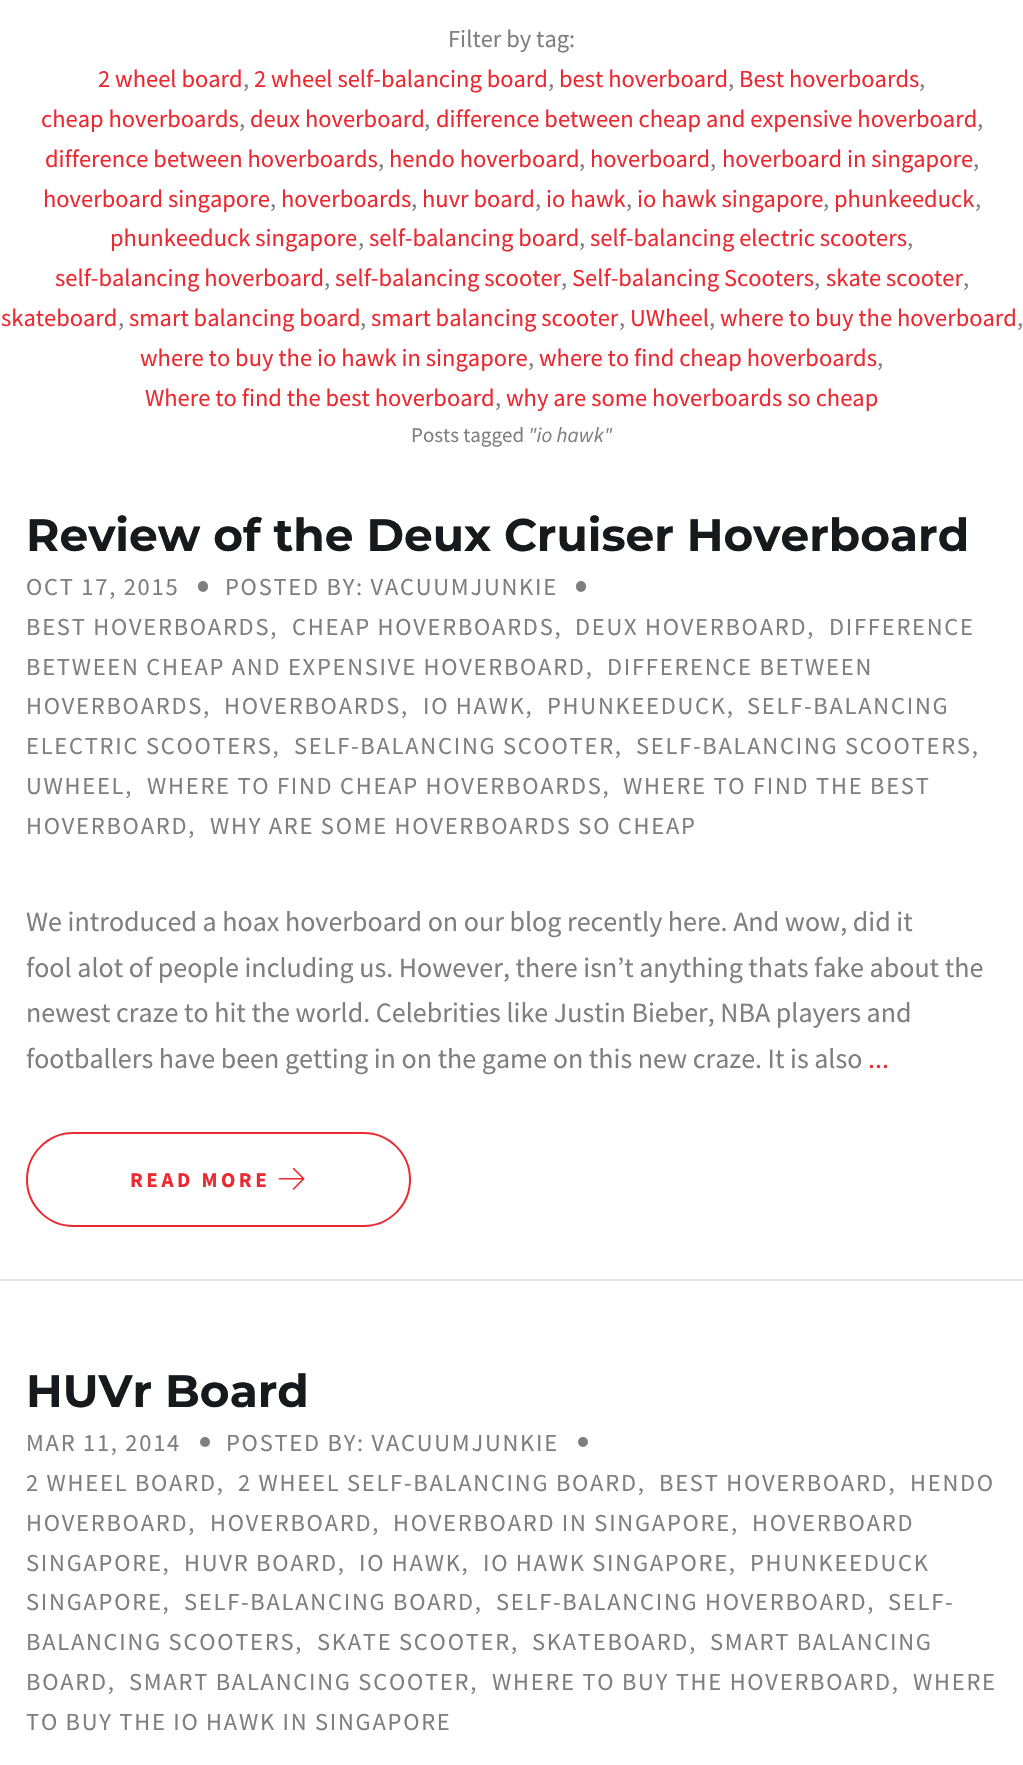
void draw(SkCanvas* canvas) {
  SkPaint paint;
  paint.setAntiAlias(true);
  auto face = [&](const char* family, int weight, float size, bool italic = false) {
    SkFontStyle style(weight, SkFontStyle::kNormal_Width,
      italic ? SkFontStyle::kItalic_Slant : SkFontStyle::kUpright_Slant);
    SkFont result(fontMgr->matchFamilyStyle(family, style), size);
    result.setSubpixel(true);
    return result;
  };
  auto writeSpaced = [&](const char* s, float x, float y, const SkFont& font, const SkPaint& ink, float letter, float word) {
    std::vector<SkGlyphID> glyphs(font.countText(s, strlen(s), SkTextEncoding::kUTF8));
    std::vector<float> xs(glyphs.size());
    font.textToGlyphs(s, strlen(s), SkTextEncoding::kUTF8, glyphs);
    font.getXPos(glyphs, xs, x);
    float extra = 0;
    for (size_t i = 0; i < glyphs.size(); i++) {
      xs[i] += extra;
      extra += letter + word * (glyphs[i] == font.unicharToGlyph(' '));
    }
    canvas->drawTextBlob(SkTextBlob::MakeFromPosHGlyphs(glyphs, xs, y, font), 0, 0, ink);
  };
  auto paste = [&](const char* path, float x, float y, float w, float h) {
    auto image = SkImages::DeferredFromEncodedData(SkData::MakeFromFileName(path));
    canvas->drawImageRect(image, SkRect::MakeXYWH(x, y, w, h), SkSamplingOptions());
  };
  canvas->clear(0xffffffff);
  paint.setColor(0xff7f7f7f);
  canvas->drawRoundRect(SkRect::MakeXYWH(198, 581, 10, 11), 5, 5, paint);
  canvas->drawRoundRect(SkRect::MakeXYWH(576, 581, 10, 11), 5, 5, paint);
  paint.setStroke(true);
  paint.setStrokeWidth(2);
  paint.setColor(0xffea2931);
  canvas->drawRoundRect(SkRect::MakeXYWH(27, 1133, 383, 93), 46.5f, 46.5f, paint);
  paste("img/1.png", 278, 1167, 27, 23);
  paint.setStroke(false);
  paint.setColor(0xffe3e3e3);
  canvas->drawRect(SkRect::MakeXYWH(0, 1279, 1023, 2), paint);
  paint.setColor(0xff7f7f7f);
  canvas->drawCircle(205, 1442, 5, paint);
  canvas->drawCircle(583, 1442, 5, paint);
  auto f0 = face("Source Sans Pro", 400, 24.5f);
  canvas->drawString("Filter by tag:", 448, 47, f0, paint);
  paint.setColor(0xffea2931);
  canvas->drawString("2 wheel board", 98, 87, f0, paint);
  paint.setColor(0xff7f7f7f);
  canvas->drawString(",", 243, 87, f0, paint);
  paint.setColor(0xffea2931);
  canvas->drawString("2 wheel self-balancing board", 254, 87, f0, paint);
  paint.setColor(0xff7f7f7f);
  canvas->drawString(",", 548, 87, f0, paint);
  paint.setColor(0xffea2931);
  canvas->drawString("best hoverboard", 559, 87, f0, paint);
  paint.setColor(0xff7f7f7f);
  canvas->drawString(",", 728, 87, f0, paint);
  paint.setColor(0xffea2931);
  canvas->drawString("Best hoverboards", 739, 87, f0, paint);
  paint.setColor(0xff7f7f7f);
  canvas->drawString(",", 919, 87, f0, paint);
  paint.setColor(0xffea2931);
  canvas->drawString("cheap hoverboards", 41, 127, f0, paint);
  paint.setColor(0xff7f7f7f);
  canvas->drawString(",", 239, 127, f0, paint);
  paint.setColor(0xffea2931);
  canvas->drawString("deux hoverboard", 250, 127, f0, paint);
  paint.setColor(0xff7f7f7f);
  canvas->drawString(",", 424, 127, f0, paint);
  paint.setColor(0xffea2931);
  canvas->drawString("difference between cheap and expensive hoverboard", 436, 127, f0, paint);
  paint.setColor(0xff7f7f7f);
  canvas->drawString(",", 977, 127, f0, paint);
  paint.setColor(0xffea2931);
  canvas->drawString("difference between hoverboards", 45, 167, f0, paint);
  paint.setColor(0xff7f7f7f);
  canvas->drawString(",", 378, 167, f0, paint);
  paint.setColor(0xffea2931);
  canvas->drawString("hendo hoverboard", 389, 167, f0, paint);
  paint.setColor(0xff7f7f7f);
  canvas->drawString(",", 579, 167, f0, paint);
  paint.setColor(0xffea2931);
  canvas->drawString("hoverboard", 590, 167, f0, paint);
  paint.setColor(0xff7f7f7f);
  canvas->drawString(",", 710, 167, f0, paint);
  paint.setColor(0xffea2931);
  canvas->drawString("hoverboard in singapore", 722, 167, f0, paint);
  paint.setColor(0xff7f7f7f);
  canvas->drawString(",", 973, 167, f0, paint);
  paint.setColor(0xffea2931);
  canvas->drawString("hoverboard singapore", 43, 207, f0, paint);
  paint.setColor(0xff7f7f7f);
  canvas->drawString(",", 270, 207, f0, paint);
  paint.setColor(0xffea2931);
  canvas->drawString("hoverboards", 281, 207, f0, paint);
  paint.setColor(0xff7f7f7f);
  canvas->drawString(",", 411, 207, f0, paint);
  paint.setColor(0xffea2931);
  canvas->drawString("huvr board", 422, 207, f0, paint);
  paint.setColor(0xff7f7f7f);
  canvas->drawString(",", 535, 207, f0, paint);
  paint.setColor(0xffea2931);
  canvas->drawString("io hawk", 546, 207, f0, paint);
  paint.setColor(0xff7f7f7f);
  canvas->drawString(",", 626, 207, f0, paint);
  paint.setColor(0xffea2931);
  canvas->drawString("io hawk singapore", 637, 207, f0, paint);
  paint.setColor(0xff7f7f7f);
  canvas->drawString(",", 823, 207, f0, paint);
  paint.setColor(0xffea2931);
  canvas->drawString("phunkeeduck", 834, 207, f0, paint);
  paint.setColor(0xff7f7f7f);
  canvas->drawString(",", 975, 207, f0, paint);
  paint.setColor(0xffea2931);
  canvas->drawString("phunkeeduck singapore", 110, 246, f0, paint);
  paint.setColor(0xff7f7f7f);
  canvas->drawString(",", 358, 246, f0, paint);
  paint.setColor(0xffea2931);
  canvas->drawString("self-balancing board", 369, 246, f0, paint);
  paint.setColor(0xff7f7f7f);
  canvas->drawString(",", 579, 246, f0, paint);
  paint.setColor(0xffea2931);
  canvas->drawString("self-balancing electric scooters", 590, 246, f0, paint);
  paint.setColor(0xff7f7f7f);
  canvas->drawString(",", 907, 246, f0, paint);
  paint.setColor(0xffea2931);
  canvas->drawString("self-balancing hoverboard", 55, 286, f0, paint);
  paint.setColor(0xff7f7f7f);
  canvas->drawString(",", 324, 286, f0, paint);
  paint.setColor(0xffea2931);
  canvas->drawString("self-balancing scooter", 335, 286, f0, paint);
  paint.setColor(0xff7f7f7f);
  canvas->drawString(",", 561, 286, f0, paint);
  paint.setColor(0xffea2931);
  canvas->drawString("Self-balancing Scooters", 572, 286, f0, paint);
  paint.setColor(0xff7f7f7f);
  canvas->drawString(",", 814, 286, f0, paint);
  paint.setColor(0xffea2931);
  canvas->drawString("skate scooter", 826, 286, f0, paint);
  paint.setColor(0xff7f7f7f);
  canvas->drawString(",", 963, 286, f0, paint);
  paint.setColor(0xffea2931);
  canvas->drawString("skateboard", 1, 326, f0, paint);
  paint.setColor(0xff7f7f7f);
  canvas->drawString(",", 118, 326, f0, paint);
  paint.setColor(0xffea2931);
  canvas->drawString("smart balancing board", 129, 326, f0, paint);
  paint.setColor(0xff7f7f7f);
  canvas->drawString(",", 360, 326, f0, paint);
  paint.setColor(0xffea2931);
  canvas->drawString("smart balancing scooter", 371, 326, f0, paint);
  paint.setColor(0xff7f7f7f);
  canvas->drawString(",", 619, 326, f0, paint);
  paint.setColor(0xffea2931);
  canvas->drawString("UWheel", 630, 326, f0, paint);
  paint.setColor(0xff7f7f7f);
  canvas->drawString(",", 709, 326, f0, paint);
  paint.setColor(0xffea2931);
  canvas->drawString("where to buy the hoverboard", 720, 326, f0, paint);
  paint.setColor(0xff7f7f7f);
  canvas->drawString(",", 1017, 326, f0, paint);
  paint.setColor(0xffea2931);
  canvas->drawString("where to buy the io hawk in singapore", 140, 366, f0, paint);
  paint.setColor(0xff7f7f7f);
  canvas->drawString(",", 528, 366, f0, paint);
  paint.setColor(0xffea2931);
  canvas->drawString("where to find cheap hoverboards", 539, 366, f0, paint);
  paint.setColor(0xff7f7f7f);
  canvas->drawString(",", 877, 366, f0, paint);
  paint.setColor(0xffea2931);
  canvas->drawString("Where to find the best hoverboard", 145, 406, f0, paint);
  paint.setColor(0xff7f7f7f);
  canvas->drawString(",", 495, 406, f0, paint);
  paint.setColor(0xffea2931);
  canvas->drawString("why are some hoverboards so cheap", 506, 406, f0, paint);
  auto f1 = face("Source Sans Pro", 400, 21);
  paint.setColor(0xff7f7f7f);
  canvas->drawString("Posts tagged", 411, 442, f1, paint);
  auto f2 = face("Source Sans Pro", 400, 21, true);
  canvas->drawString("\"io hawk\"", 528, 442, f2, paint);
  auto f3 = face("Montserrat", 700, 45.5f);
  paint.setColor(0xff161a1c);
  canvas->drawString("Review of the Deux Cruiser Hoverboard", 26, 551, f3, paint);
  paint.setColor(0xff7f7f7f);
  {
    const struct { const char* s; float x, y; } items[] = {
      {"OCT 17, 2015", 26, 595},
      {"POSTED BY: VACUUMJUNKIE", 225, 595},
      {"BEST HOVERBOARDS,", 26, 635},
      {"CHEAP HOVERBOARDS,", 292, 635},
      {"DEUX HOVERBOARD,", 575, 635},
      {"DIFFERENCE", 829, 635},
      {"BETWEEN CHEAP AND EXPENSIVE HOVERBOARD,", 26, 675},
      {"DIFFERENCE BETWEEN", 607, 675},
      {"HOVERBOARDS,", 26, 714},
      {"HOVERBOARDS,", 224, 714},
      {"IO HAWK,", 423, 714},
      {"PHUNKEEDUCK,", 547, 714},
      {"SELF-BALANCING", 747, 714},
      {"ELECTRIC SCOOTERS,", 26, 754},
      {"SELF-BALANCING SCOOTER,", 294, 754},
      {"SELF-BALANCING SCOOTERS,", 636, 754},
      {"UWHEEL,", 26, 794},
      {"WHERE TO FIND CHEAP HOVERBOARDS,", 147, 794},
      {"WHERE TO FIND THE BEST", 623, 794},
      {"HOVERBOARD,", 26, 834},
      {"WHY ARE SOME HOVERBOARDS SO CHEAP", 210, 834},
    };
    for (auto [s, x, y] : items) {
      writeSpaced(s, x, y, f0, paint, 1.75f, 0);
    }
  }
  auto f4 = face("Source Sans Pro", 400, 28);
  {
    const struct { const char* s; float x, y; } items[] = {
      {"We introduced a hoax hoverboard on our blog recently here. And wow, did it", 26, 931},
      {"fool alot of people including us. However, there isn’t anything thats fake about the", 26, 977},
      {"newest craze to hit the world. Celebrities like Justin Bieber, NBA players and", 26, 1022},
      {"footballers have been getting in on the game on this new craze. It is also", 26, 1068},
    };
    for (auto [s, x, y] : items) {
      canvas->drawString(s, x, y, f4, paint);
    }
  }
  paint.setColor(0xffea2931);
  canvas->drawString("...", 868, 1068, f4, paint);
  auto f5 = face("Source Sans Pro", 700, 21);
  writeSpaced("READ MORE", 130, 1187, f5, paint, 3.5f, 0);
  paint.setColor(0xff161a1c);
  canvas->drawString("HUVr Board", 26, 1407, f3, paint);
  paint.setColor(0xff7f7f7f);
  {
    const struct { const char* s; float x, y; } items[] = {
      {"MAR 11, 2014", 26, 1451},
      {"POSTED BY: VACUUMJUNKIE", 226, 1451},
      {"2 WHEEL BOARD,", 26, 1491},
      {"2 WHEEL SELF-BALANCING BOARD,", 238, 1491},
      {"BEST HOVERBOARD,", 659, 1491},
      {"HENDO", 910, 1491},
      {"HOVERBOARD,", 26, 1531},
      {"HOVERBOARD,", 210, 1531},
      {"HOVERBOARD IN SINGAPORE,", 393, 1531},
      {"HOVERBOARD", 752, 1531},
      {"SINGAPORE,", 26, 1571},
      {"HUVR BOARD,", 184, 1571},
      {"IO HAWK,", 359, 1571},
      {"IO HAWK SINGAPORE,", 483, 1571},
      {"PHUNKEEDUCK", 750, 1571},
      {"SINGAPORE,", 26, 1610},
      {"SELF-BALANCING BOARD,", 184, 1610},
      {"SELF-BALANCING HOVERBOARD,", 496, 1610},
      {"SELF-", 888, 1610},
      {"BALANCING SCOOTERS,", 26, 1650},
      {"SKATE SCOOTER,", 317, 1650},
      {"SKATEBOARD,", 532, 1650},
      {"SMART BALANCING", 710, 1650},
      {"BOARD,", 26, 1690},
      {"SMART BALANCING SCOOTER,", 129, 1690},
      {"WHERE TO BUY THE HOVERBOARD,", 492, 1690},
      {"WHERE", 913, 1690},
      {"TO BUY THE IO HAWK IN SINGAPORE", 26, 1730},
    };
    for (auto [s, x, y] : items) {
      writeSpaced(s, x, y, f0, paint, 1.75f, 0);
    }
  }
}
